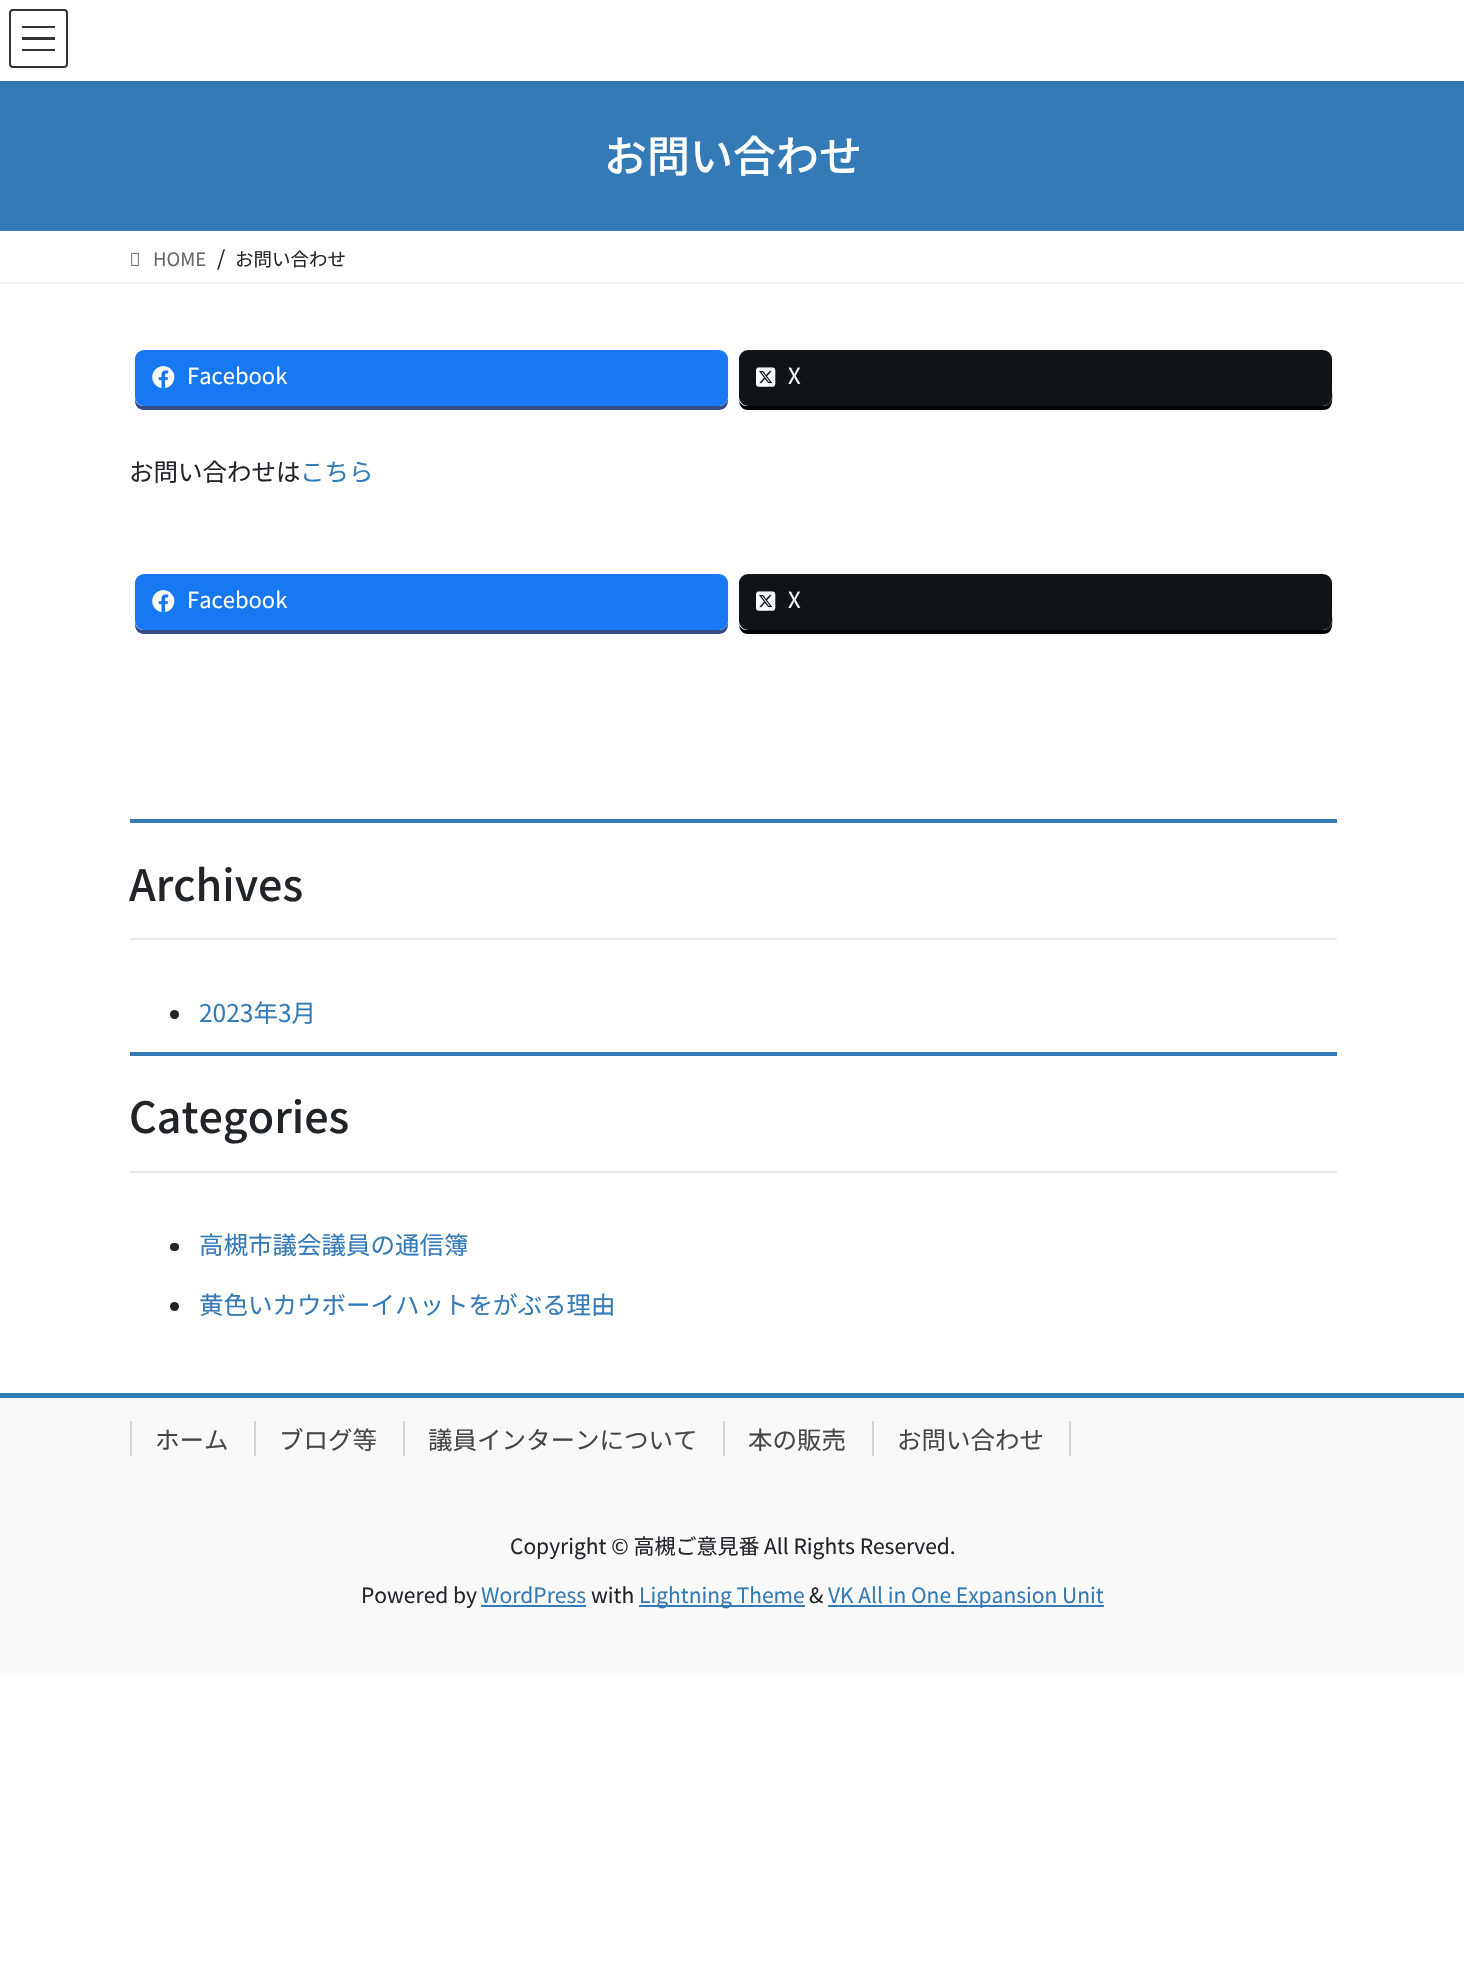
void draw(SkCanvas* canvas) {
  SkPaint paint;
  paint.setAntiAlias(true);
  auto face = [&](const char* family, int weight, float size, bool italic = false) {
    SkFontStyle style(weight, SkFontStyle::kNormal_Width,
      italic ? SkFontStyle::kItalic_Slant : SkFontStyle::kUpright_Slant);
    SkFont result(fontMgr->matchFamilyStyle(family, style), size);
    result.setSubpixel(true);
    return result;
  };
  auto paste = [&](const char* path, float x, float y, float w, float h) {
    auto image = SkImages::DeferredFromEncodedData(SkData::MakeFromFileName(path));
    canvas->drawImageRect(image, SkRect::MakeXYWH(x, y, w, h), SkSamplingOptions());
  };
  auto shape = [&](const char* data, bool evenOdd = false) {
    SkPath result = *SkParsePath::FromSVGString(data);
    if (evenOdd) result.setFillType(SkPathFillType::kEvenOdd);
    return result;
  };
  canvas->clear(0xffffffff);
  paint.setColor(0xff337ab7);
  canvas->drawRect(SkRect::MakeXYWH(0, 81, 1464, 150), paint);
  paint.setColor(0x1a000000);
  paint.setMaskFilter(SkMaskFilter::MakeBlur(kNormal_SkBlurStyle, 2.5f));
  canvas->drawRect(SkRect::MakeXYWH(0, 2, 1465, 80), paint);
  paint.setMaskFilter(nullptr);
  {
    const struct { float x, y, w, h; SkColor color; } items[] = {
      {0, 0, 1464, 81, 0xffffffff},
      {22, 26, 33, 2, 0xff333333},
      {22, 37, 33, 3, 0xff333333},
      {22, 49, 33, 2, 0xff333333},
    };
    for (auto [x, y, w, h, color] : items) {
      paint.setColor(color);
      canvas->drawRect(SkRect::MakeXYWH(x, y, w, h), paint);
    }
  }
  paint.setStroke(true);
  paint.setStrokeWidth(2);
  canvas->drawRoundRect(SkRect::MakeXYWH(10, 10, 57, 57), 3, 3, paint);
  paint.setStroke(false);
  paint.setColor(0xfff2f2f2);
  canvas->drawRect(SkRect::MakeXYWH(0, 282, 1464, 2), paint);
  paste("img/1.png", 131, 252, 8, 14);
  paint.setColor(0xff344e84);
  canvas->drawPath(shape("M135 399V401C135 406 139 410 144 410H719C724 410 728 406 728 401V397C728 402 724 406 719 406H144C139 406 136 403 135 399Z"), paint);
  paint.setColor(0xff1877f2);
  canvas->drawRoundRect(SkRect::MakeXYWH(135, 350, 593, 56), 9, 9, paint);
  paste("img/2.png", 152, 366, 23, 23);
  paint.setColor(0xff000000);
  canvas->drawPath(shape("M739 400C739 405 742 410 748 410H1323C1335 410 1332 396 1332 388V361V397C1332 402 1328 406 1323 406H747C743 406 740 404 739 400Z"), paint);
  paint.setColor(0xff0f1419);
  canvas->drawRoundRect(SkRect::MakeXYWH(739, 350, 593, 56), 9, 9, paint);
  paste("img/3.png", 756, 367, 20, 20);
  paint.setColor(0xff344e84);
  canvas->drawPath(shape("M135 623V625C135 630 139 634 144 634H719C724 634 728 630 728 625V621C728 626 724 630 719 630H144C139 630 136 627 135 623Z"), paint);
  paint.setColor(0xff1877f2);
  canvas->drawRoundRect(SkRect::MakeXYWH(135, 574, 593, 56), 9, 9, paint);
  paste("img/2.png", 152, 590, 23, 23);
  paint.setColor(0xff000000);
  canvas->drawPath(shape("M739 624C739 629 742 634 748 634H1323C1335 634 1332 620 1332 612V585V621C1332 626 1328 630 1323 630H747C743 630 740 628 739 624Z"), paint);
  paint.setColor(0xff0f1419);
  canvas->drawRoundRect(SkRect::MakeXYWH(739, 574, 593, 56), 9, 9, paint);
  paste("img/3.png", 756, 591, 20, 20);
  paint.setColor(0xff337ab7);
  canvas->drawRect(SkRect::MakeXYWH(130, 819, 1207, 4), paint);
  paint.setColor(0xffe9e9e9);
  canvas->drawRect(SkRect::MakeXYWH(130, 938, 1207, 2), paint);
  paint.setColor(0xff212529);
  canvas->drawCircle(174.5f, 1014.5f, 4.5f, paint);
  paint.setColor(0xff337ab7);
  canvas->drawRect(SkRect::MakeXYWH(130, 1052, 1207, 4), paint);
  paint.setColor(0xffe9e9e9);
  canvas->drawRect(SkRect::MakeXYWH(130, 1171, 1207, 2), paint);
  paint.setColor(0xff212529);
  canvas->drawRoundRect(SkRect::MakeXYWH(170, 1243, 9, 8), 4, 4, paint);
  canvas->drawCircle(174.5f, 1306.5f, 4.5f, paint);
  {
    const struct { float x, y, w, h; SkColor color; } items[] = {
      {0, 1398, 1464, 275, 0xfff9f9f9},
      {0, 1393, 1464, 5, 0xff337ab7},
      {130, 1421, 2, 35, 0xffd4d4d4},
      {254, 1421, 2, 35, 0xffd4d4d4},
      {403, 1421, 2, 35, 0xffd4d4d4},
      {723, 1421, 2, 35, 0xffd4d4d4},
      {1069, 1421, 2, 35, 0xffd4d4d4},
      {872, 1421, 2, 35, 0xffd4d4d4},
      {481, 1605, 105, 2, 0xff337ab7},
      {639, 1605, 166, 2, 0xff337ab7},
      {828, 1605, 276, 2, 0xff337ab7},
    };
    for (auto [x, y, w, h, color] : items) {
      paint.setColor(color);
      canvas->drawRect(SkRect::MakeXYWH(x, y, w, h), paint);
    }
  }
  auto f0 = face("Noto Sans JP", 500, 43);
  paint.setColor(0xffffffff);
  canvas->drawString("お問い合わせ", 604, 172, f0, paint);
  auto f1 = face("Noto Sans JP", 400, 18.5f);
  paint.setColor(0xff666666);
  canvas->drawString("HOME", 153, 266, f1, paint);
  auto f2 = face("Noto Sans JP", 400, 21);
  paint.setColor(0xff212529);
  canvas->drawString("/", 217, 266, f2, paint);
  canvas->drawString("お問い合わせ", 235, 266, f1, paint);
  auto f3 = face("Noto Sans JP", 400, 22);
  paint.setColor(0xffffffff);
  canvas->drawString("Facebook", 187, 384, f3, paint);
  canvas->drawString("X", 788, 384, f3, paint);
  auto f4 = face("Noto Sans JP", 400, 24.5f);
  paint.setColor(0xff212529);
  canvas->drawString("お問い合わせは", 129, 481, f4, paint);
  paint.setColor(0xff337ab7);
  canvas->drawString("こちら", 300, 481, f4, paint);
  paint.setColor(0xffffffff);
  canvas->drawString("Facebook", 187, 608, f3, paint);
  canvas->drawString("X", 788, 608, f3, paint);
  paint.setColor(0xff212529);
  canvas->drawString("Archives", 129, 901, f0, paint);
  paint.setColor(0xff337ab7);
  canvas->drawString("2023年3月", 199, 1022, f4, paint);
  paint.setColor(0xff212529);
  canvas->drawString("Categories", 129, 1133, f0, paint);
  paint.setColor(0xff337ab7);
  canvas->drawString("高槻市議会議員の通信簿", 199, 1254, f4, paint);
  canvas->drawString("黄色いカウボーイハットをがぶる理由", 199, 1314, f4, paint);
  paint.setColor(0xff464646);
  {
    const struct { const char* s; float x, y; } items[] = {
      {"ホーム", 155, 1449},
      {"ブログ等", 279, 1449},
      {"議員インターンについて", 428, 1449},
      {"本の販売", 748, 1449},
      {"お問い合わせ", 897, 1449},
    };
    for (auto [s, x, y] : items) {
      canvas->drawString(s, x, y, f4, paint);
    }
  }
  paint.setColor(0xff212529);
  canvas->drawString("Copyright © 高槻ご意見番 All Rights Reserved.", 510, 1554, f2, paint);
  canvas->drawString("Powered by", 361, 1603, f2, paint);
  paint.setColor(0xff337ab7);
  canvas->drawString("WordPress", 481, 1603, f2, paint);
  paint.setColor(0xff212529);
  canvas->drawString("with", 591, 1603, f2, paint);
  paint.setColor(0xff337ab7);
  canvas->drawString("Lightning Theme", 639, 1603, f2, paint);
  paint.setColor(0xff212529);
  canvas->drawString("&", 809, 1603, f2, paint);
  paint.setColor(0xff337ab7);
  canvas->drawString("VK All in One Expansion Unit", 828, 1603, f2, paint);
}
